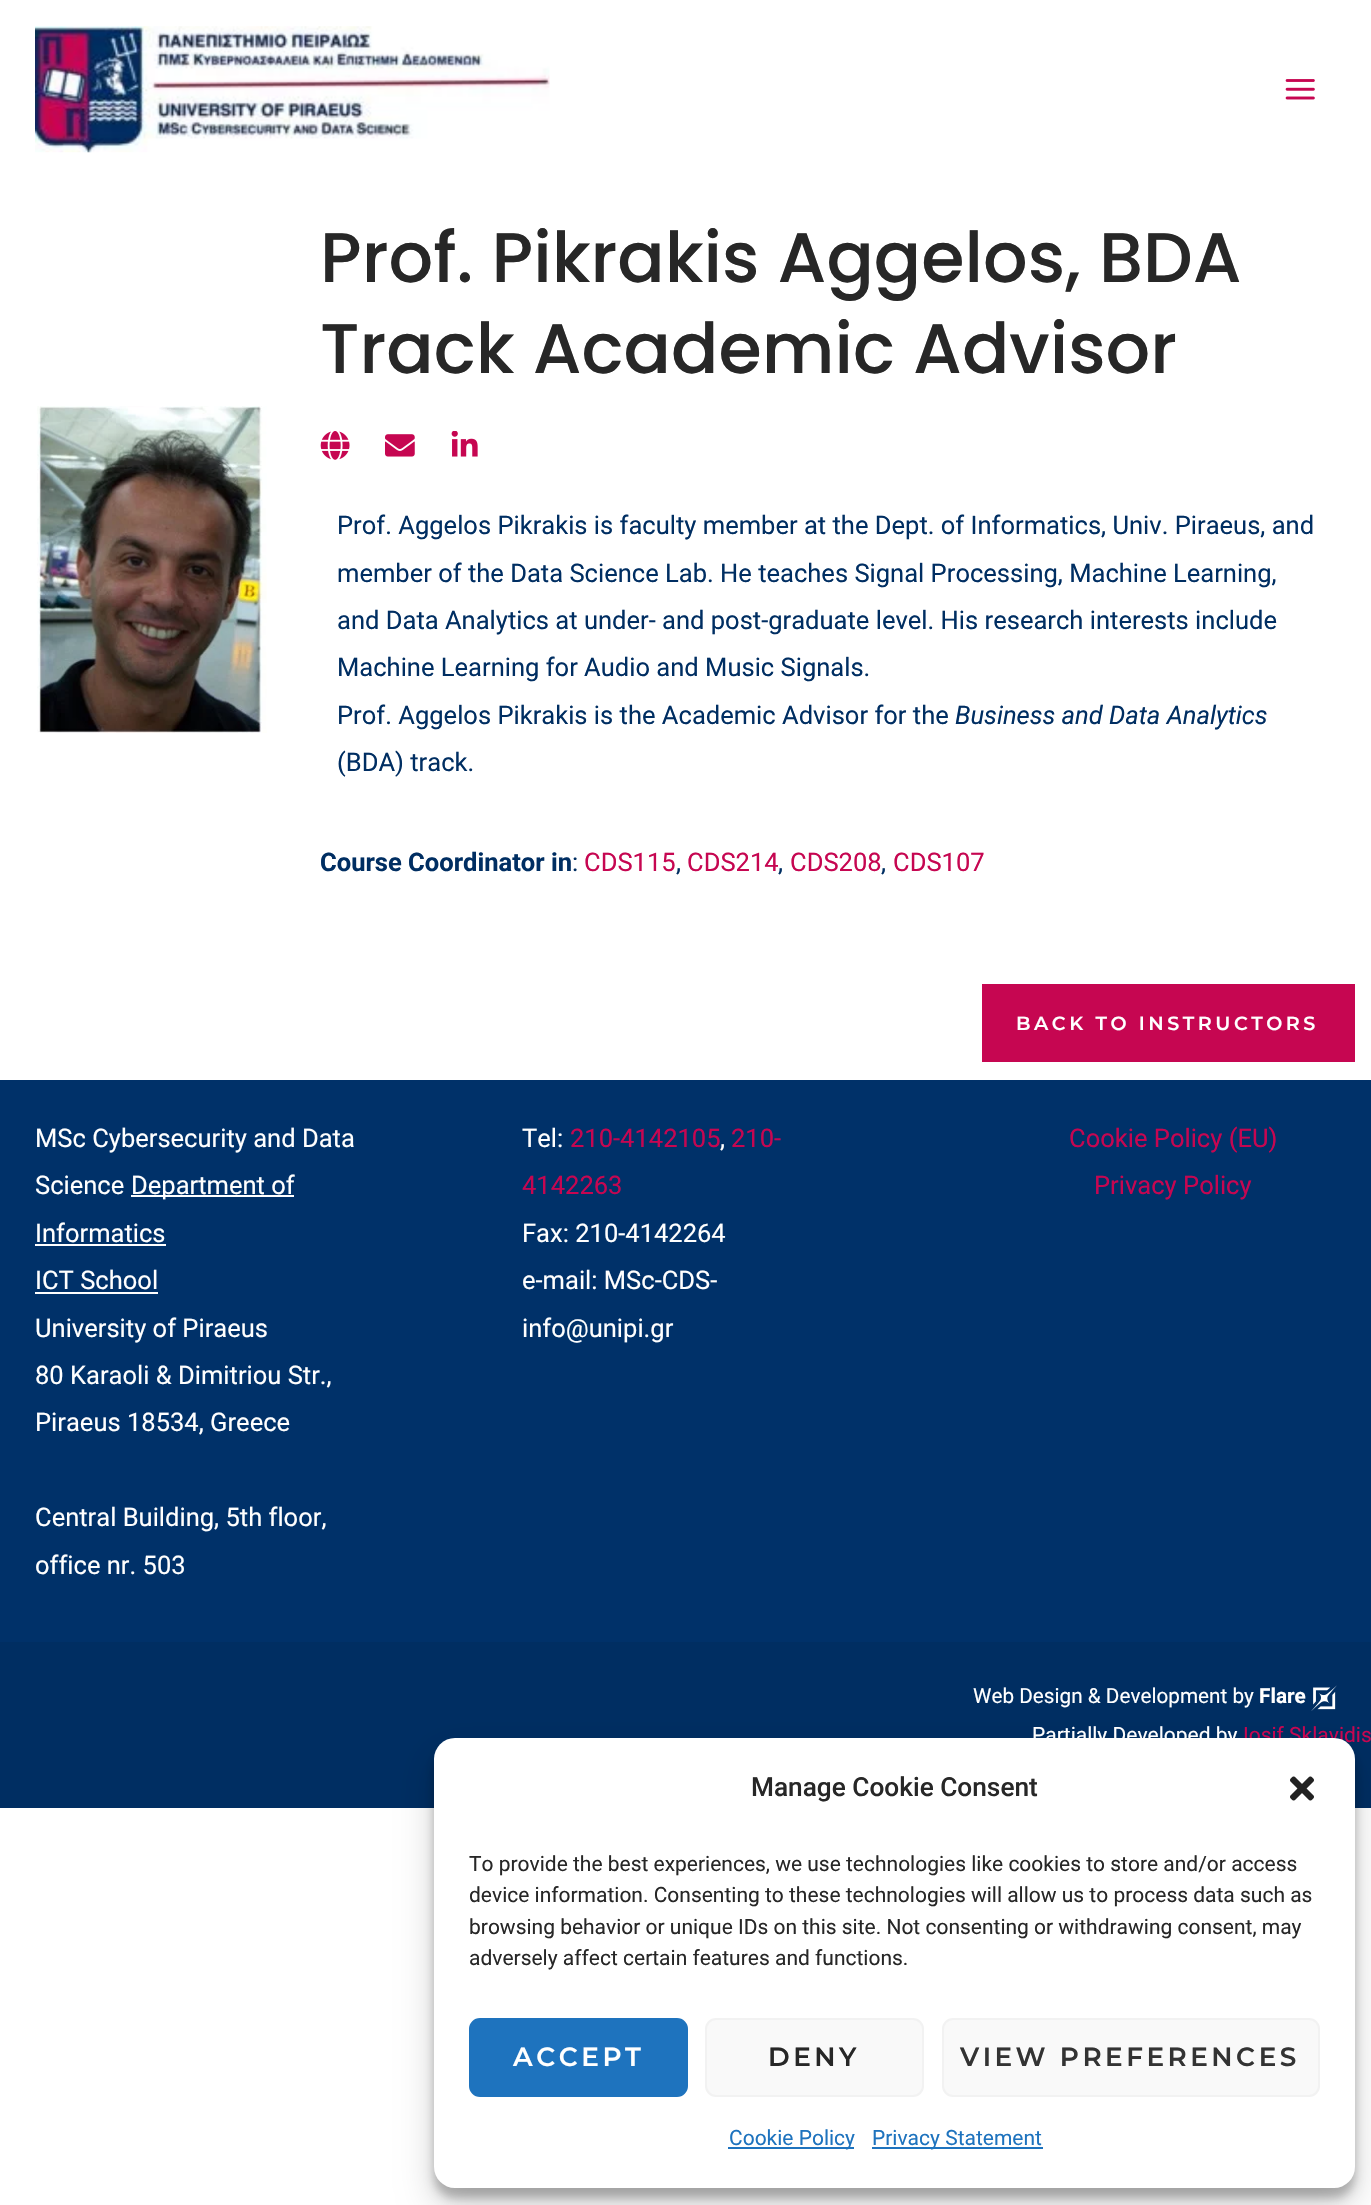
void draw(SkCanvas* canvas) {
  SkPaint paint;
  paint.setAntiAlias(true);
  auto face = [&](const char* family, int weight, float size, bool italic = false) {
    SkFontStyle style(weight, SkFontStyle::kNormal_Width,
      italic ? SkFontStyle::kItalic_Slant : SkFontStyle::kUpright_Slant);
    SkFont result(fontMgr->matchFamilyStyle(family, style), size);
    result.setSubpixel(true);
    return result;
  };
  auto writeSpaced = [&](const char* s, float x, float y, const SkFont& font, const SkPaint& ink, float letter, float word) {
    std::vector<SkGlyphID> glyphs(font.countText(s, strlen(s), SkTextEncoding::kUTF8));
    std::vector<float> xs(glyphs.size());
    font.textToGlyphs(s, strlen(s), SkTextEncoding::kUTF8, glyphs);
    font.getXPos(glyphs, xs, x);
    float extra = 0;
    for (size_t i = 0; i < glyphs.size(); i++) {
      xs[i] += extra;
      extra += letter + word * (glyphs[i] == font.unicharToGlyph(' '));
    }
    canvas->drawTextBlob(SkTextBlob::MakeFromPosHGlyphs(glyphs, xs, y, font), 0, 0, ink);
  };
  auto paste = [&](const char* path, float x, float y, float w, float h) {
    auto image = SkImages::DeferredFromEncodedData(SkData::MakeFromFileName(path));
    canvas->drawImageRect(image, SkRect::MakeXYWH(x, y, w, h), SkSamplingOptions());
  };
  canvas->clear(0xffffffff);
  paste("img/1.png", 35, 26, 515, 127);
  paste("img/2.png", 1285, 79, 30, 21);
  paste("img/3.png", 37, 406, 230, 327);
  paste("img/4.png", 320, 431, 30, 29);
  paste("img/5.png", 385, 434, 30, 23);
  paste("img/6.png", 451, 431, 27, 26);
  {
    const struct { float x, y, w, h; SkColor color; } items[] = {
      {982, 984, 373, 78, 0xffc60651},
      {0, 1080, 1371, 562, 0xff003169},
      {131, 1195, 163, 2, 0xffffffff},
      {35, 1244, 131, 2, 0xffffffff},
      {35, 1292, 123, 2, 0xffffffff},
      {0, 1642, 1371, 166, 0xff002e62},
    };
    for (auto [x, y, w, h, color] : items) {
      paint.setColor(color);
      canvas->drawRect(SkRect::MakeXYWH(x, y, w, h), paint);
    }
  }
  paste("img/7.png", 1311, 1685, 26, 26);
  paint.setColor(0x3b000000);
  paint.setMaskFilter(SkMaskFilter::MakeBlur(kNormal_SkBlurStyle, 5));
  canvas->drawRoundRect(SkRect::MakeXYWH(434, 1748, 921, 450), 21, 21, paint);
  paint.setMaskFilter(nullptr);
  paint.setColor(0x30000000);
  paint.setMaskFilter(SkMaskFilter::MakeBlur(kNormal_SkBlurStyle, 17.5f));
  canvas->drawRoundRect(SkRect::MakeXYWH(434, 1755, 921, 450), 21, 21, paint);
  paint.setMaskFilter(nullptr);
  auto f0 = face("Poppins", 500, 70);
  paint.setColor(0xff272727);
  canvas->drawString("Prof. Pikrakis Aggelos, BDA", 320, 282, f0, paint);
  canvas->drawString("Track Academic Advisor", 320, 373, f0, paint);
  auto f1 = face("Roboto", 400, 25.55f);
  paint.setColor(0xff002e62);
  {
    const struct { const char* s; float x, y; } items[] = {
      {"Prof. Aggelos Pikrakis is faculty member at the Dept. of Informatics, Univ. Piraeus, and", 337, 534},
      {"member of the Data Science Lab. He teaches Signal Processing, Machine Learning,", 337, 582},
      {"and Data Analytics at under- and post-graduate level. His research interests include", 337, 629},
      {"Machine Learning for Audio and Music Signals.", 337, 676},
      {"Prof. Aggelos Pikrakis is the Academic Advisor for the", 337, 724},
    };
    for (auto [s, x, y] : items) {
      canvas->drawString(s, x, y, f1, paint);
    }
  }
  auto f2 = face("Roboto", 400, 25.55f, true);
  canvas->drawString("Business and Data Analytics", 955, 724, f2, paint);
  canvas->drawString("(BDA) track.", 337, 771, f1, paint);
  auto f3 = face("Roboto", 700, 25.55f);
  canvas->drawString("Course Coordinator in", 320, 871, f3, paint);
  canvas->drawString(":", 572, 871, f1, paint);
  paint.setColor(0xffc60651);
  canvas->drawString("CDS115", 584, 871, f1, paint);
  paint.setColor(0xff002e62);
  canvas->drawString(",", 676, 871, f1, paint);
  paint.setColor(0xffc60651);
  canvas->drawString("CDS214", 687, 871, f1, paint);
  paint.setColor(0xff002e62);
  canvas->drawString(",", 778, 871, f1, paint);
  paint.setColor(0xffc60651);
  canvas->drawString("CDS208", 790, 871, f1, paint);
  paint.setColor(0xff002e62);
  canvas->drawString(",", 881, 871, f1, paint);
  paint.setColor(0xffc60651);
  canvas->drawString("CDS107", 893, 871, f1, paint);
  auto f4 = face("Montserrat", 100, 19.1f);
  paint.setColor(0xffffffff);
  writeSpaced("BACK TO INSTRUCTORS", 1016, 1030, f4, paint, 3.5f, 0);
  {
    const struct { const char* s; float x, y; } items[] = {
      {"MSc Cybersecurity and Data", 35, 1147},
      {"Science", 35, 1194},
      {"Department of", 131, 1194},
      {"Informatics", 35, 1242},
      {"ICT School", 35, 1289},
      {"University of Piraeus", 35, 1337},
      {"80 Karaoli & Dimitriou Str.,", 35, 1384},
      {"Piraeus 18534, Greece", 35, 1431},
      {"Central Building, 5th floor,", 35, 1526},
      {"office nr. 503", 35, 1574},
      {"Tel:", 522, 1147},
    };
    for (auto [s, x, y] : items) {
      canvas->drawString(s, x, y, f1, paint);
    }
  }
  paint.setColor(0xffc60651);
  canvas->drawString("210-4142105", 570, 1147, f1, paint);
  paint.setColor(0xffffffff);
  canvas->drawString(",", 720, 1147, f1, paint);
  paint.setColor(0xffc60651);
  canvas->drawString("210-", 731, 1147, f1, paint);
  canvas->drawString("4142263", 522, 1194, f1, paint);
  paint.setColor(0xffffffff);
  {
    const struct { const char* s; float x, y; } items[] = {
      {"Fax: 210-4142264", 522, 1242},
      {"e-mail: MSc-CDS-", 522, 1289},
      {"info@unipi.gr", 522, 1337},
    };
    for (auto [s, x, y] : items) {
      canvas->drawString(s, x, y, f1, paint);
    }
  }
  paint.setColor(0xffc60651);
  canvas->drawString("Cookie Policy (EU)", 1069, 1147, f1, paint);
  canvas->drawString("Privacy Policy", 1094, 1194, f1, paint);
  auto f5 = face("Roboto", 400, 20.75f);
  paint.setColor(0xffffffff);
  canvas->drawString("Web Design & Development by", 973, 1703, f5, paint);
  auto f6 = face("Roboto", 700, 20.75f);
  canvas->drawString("Flare", 1259, 1703, f6, paint);
  auto f7 = face("Roboto", 400, 21);
  canvas->drawString("Partially Developed by", 1032, 1742, f7, paint);
  paint.setColor(0xffc60651);
  canvas->drawString("Iosif Sklavidis", 1243, 1742, f7, paint);
  paint.setColor(0xffffffff);
  canvas->drawRoundRect(SkRect::MakeXYWH(434, 1738, 921, 450), 21, 21, paint);
  auto f8 = face("Roboto", 500, 26.25f);
  paint.setColor(0xff272727);
  canvas->drawString("Manage Cookie Consent", 751, 1796, f8, paint);
  paste("img/8.png", 1290, 1776, 24, 25);
  {
    const struct { const char* s; float x, y; } items[] = {
      {"To provide the best experiences, we use technologies like cookies to store and/or access", 469, 1871},
      {"device information. Consenting to these technologies will allow us to process data such as", 469, 1902},
      {"browsing behavior or unique IDs on this site. Not consenting or withdrawing consent, may", 469, 1934},
      {"adversely affect certain features and functions.", 469, 1965},
    };
    for (auto [s, x, y] : items) {
      canvas->drawString(s, x, y, f7, paint);
    }
  }
  paint.setColor(0xff1e73be);
  canvas->drawRoundRect(SkRect::MakeXYWH(470, 2019, 217, 77), 10, 10, paint);
  paint.setStroke(true);
  paint.setStrokeWidth(2);
  canvas->drawRoundRect(SkRect::MakeXYWH(470, 2019, 217, 77), 10, 10, paint);
  auto f9 = face("Montserrat", 100, 26.25f);
  paint.setStroke(false);
  paint.setColor(0xffffffff);
  writeSpaced("ACCEPT", 513, 2066, f9, paint, 3.5f, 0);
  paint.setColor(0xfff9f9f9);
  canvas->drawRoundRect(SkRect::MakeXYWH(706, 2019, 217, 77), 10, 10, paint);
  paint.setStroke(true);
  paint.setColor(0xfff2f2f2);
  canvas->drawRoundRect(SkRect::MakeXYWH(706, 2019, 217, 77), 10, 10, paint);
  paint.setStroke(false);
  paint.setColor(0xff272727);
  writeSpaced("DENY", 768, 2066, f9, paint, 3.5f, 0);
  paint.setColor(0xfff9f9f9);
  canvas->drawRoundRect(SkRect::MakeXYWH(943, 2019, 376, 77), 10, 10, paint);
  paint.setStroke(true);
  paint.setColor(0xfff2f2f2);
  canvas->drawRoundRect(SkRect::MakeXYWH(943, 2019, 376, 77), 10, 10, paint);
  paint.setStroke(false);
  paint.setColor(0xff333333);
  writeSpaced("VIEW PREFERENCES", 960, 2066, f9, paint, 3.5f, 0);
  paint.setColor(0xff1e73be);
  canvas->drawRect(SkRect::MakeXYWH(728, 2147, 126, 2), paint);
  canvas->drawString("Cookie Policy", 729, 2145, f7, paint);
  canvas->drawRect(SkRect::MakeXYWH(872, 2147, 171, 2), paint);
  canvas->drawString("Privacy Statement", 872, 2145, f7, paint);
}
